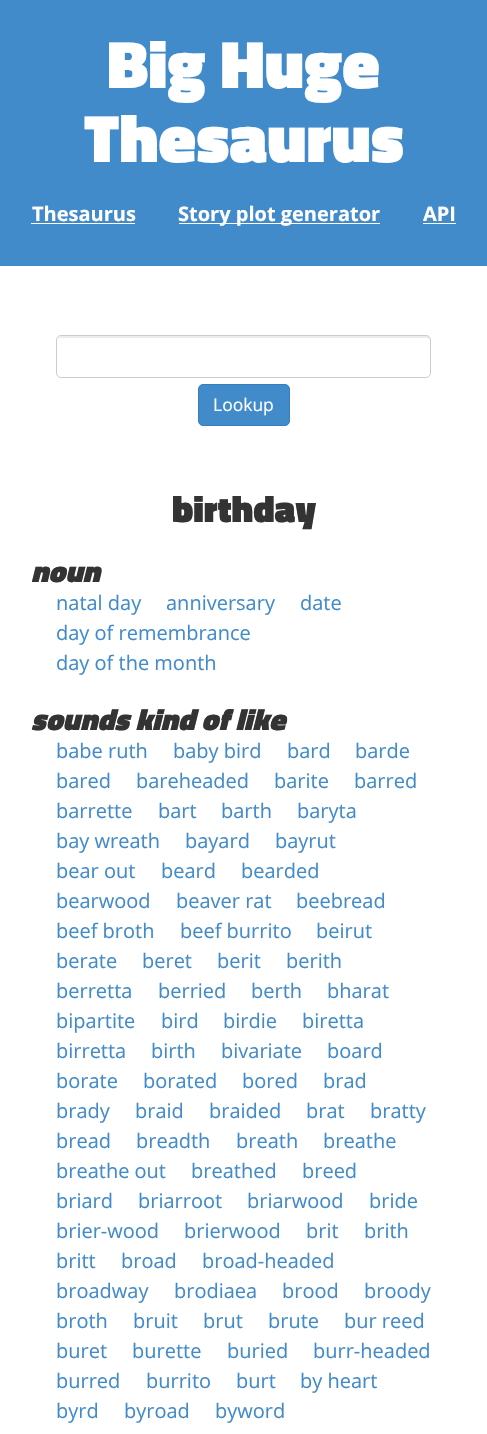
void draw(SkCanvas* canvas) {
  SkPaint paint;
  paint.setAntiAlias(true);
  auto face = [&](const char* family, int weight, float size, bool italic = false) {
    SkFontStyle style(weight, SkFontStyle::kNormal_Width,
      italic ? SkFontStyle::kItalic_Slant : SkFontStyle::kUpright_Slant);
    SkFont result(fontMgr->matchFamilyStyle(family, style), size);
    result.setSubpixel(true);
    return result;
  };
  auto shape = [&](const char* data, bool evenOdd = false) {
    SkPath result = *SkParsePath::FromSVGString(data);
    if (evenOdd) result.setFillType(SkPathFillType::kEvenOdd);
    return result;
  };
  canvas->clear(0xffffffff);
  {
    const struct { float x, y, w, h; SkColor color; } items[] = {
      {0, 0, 487, 266, 0xff428bca},
      {31, 223, 104, 1, 0xffffffff},
      {179, 223, 201, 1, 0xffffffff},
      {423, 223, 33, 1, 0xffffffff},
    };
    for (auto [x, y, w, h, color] : items) {
      paint.setColor(color);
      canvas->drawRect(SkRect::MakeXYWH(x, y, w, h), paint);
    }
  }
  paint.setColor(0xffececec);
  canvas->drawPath(shape("M61 338H426C428 338 430 339 430 341C430 338 429 336 426 336H62C59 336 58 338 58 341C58 339 59 338 61 338Z"), paint);
  paint.setStroke(true);
  paint.setStrokeWidth(1);
  paint.setColor(0xffcccccc);
  canvas->drawRoundRect(SkRect::MakeXYWH(56.5f, 335.5f, 374, 42), 4.5f, 4.5f, paint);
  paint.setStroke(false);
  paint.setColor(0xff428bca);
  canvas->drawRoundRect(SkRect::MakeXYWH(198.5f, 384.5f, 91, 41), 4.5f, 4.5f, paint);
  paint.setStroke(true);
  paint.setColor(0xff357ebd);
  canvas->drawRoundRect(SkRect::MakeXYWH(198.5f, 384.5f, 91, 41), 4.5f, 4.5f, paint);
  auto f0 = face("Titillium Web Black", 900, 68);
  paint.setStroke(false);
  paint.setColor(0xffffffff);
  canvas->drawString("Big Huge", 107, 88, f0, paint);
  canvas->drawString("Thesaurus", 84, 162, f0, paint);
  auto f1 = face("Open Sans", 700, 20);
  {
    const struct { const char* s; float x, y; } items[] = {
      {"Thesaurus", 32, 221},
      {"Story plot generator", 178, 221},
      {"API", 423, 221},
    };
    for (auto [s, x, y] : items) {
      canvas->drawString(s, x, y, f1, paint);
    }
  }
  auto f2 = face("Open Sans", 400, 17.5f);
  canvas->drawString("Lookup", 213, 411, f2, paint);
  auto f3 = face("Titillium Web Black", 900, 37.5f);
  paint.setColor(0xff333333);
  canvas->drawString("birthday", 172, 522, f3, paint);
  auto f4 = face("Titillium Web Black", 900, 30, true);
  canvas->drawString("noun", 31, 582, f4, paint);
  auto f5 = face("Open Sans", 400, 20);
  paint.setColor(0xff428bca);
  {
    const struct { const char* s; float x, y; } items[] = {
      {"natal day", 56, 610},
      {"anniversary", 166, 610},
      {"date", 300, 610},
      {"day of remembrance", 56, 640},
      {"day of the month", 56, 670},
    };
    for (auto [s, x, y] : items) {
      canvas->drawString(s, x, y, f5, paint);
    }
  }
  paint.setColor(0xff333333);
  canvas->drawString("sounds kind of like", 31, 730, f4, paint);
  paint.setColor(0xff428bca);
  {
    const struct { const char* s; float x, y; } items[] = {
      {"babe ruth", 56, 758},
      {"baby bird", 173, 758},
      {"bard", 287, 758},
      {"barde", 355, 758},
      {"bared", 56, 788},
      {"bareheaded", 136, 788},
      {"barite", 274, 788},
      {"barred", 354, 788},
      {"barrette", 56, 818},
      {"bart", 158, 818},
      {"barth", 221, 818},
      {"baryta", 297, 818},
      {"bay wreath", 56, 848},
      {"bayard", 185, 848},
      {"bayrut", 275, 848},
      {"bear out", 56, 878},
      {"beard", 161, 878},
      {"bearded", 241, 878},
      {"bearwood", 56, 908},
      {"beaver rat", 176, 908},
      {"beebread", 296, 908},
      {"beef broth", 56, 938},
      {"beef burrito", 180, 938},
      {"beirut", 316, 938},
      {"berate", 56, 968},
      {"beret", 142, 968},
      {"berit", 217, 968},
      {"berith", 286, 968},
      {"berretta", 56, 998},
      {"berried", 158, 998},
      {"berth", 251, 998},
      {"bharat", 327, 998},
      {"bipartite", 56, 1028},
      {"bird", 161, 1028},
      {"birdie", 223, 1028},
      {"biretta", 302, 1028},
      {"birretta", 56, 1058},
      {"birth", 151, 1058},
      {"bivariate", 221, 1058},
      {"board", 327, 1058},
      {"borate", 56, 1088},
      {"borated", 143, 1088},
      {"bored", 242, 1088},
      {"brad", 323, 1088},
      {"brady", 56, 1118},
      {"braid", 135, 1118},
      {"braided", 209, 1118},
      {"brat", 306, 1118},
      {"bratty", 370, 1118},
      {"bread", 56, 1148},
      {"breadth", 136, 1148},
      {"breath", 236, 1148},
      {"breathe", 323, 1148},
      {"breathe out", 56, 1178},
      {"breathed", 191, 1178},
      {"breed", 302, 1178},
      {"briard", 56, 1208},
      {"briarroot", 138, 1208},
      {"briarwood", 247, 1208},
      {"bride", 369, 1208},
      {"brier-wood", 56, 1238},
      {"brierwood", 184, 1238},
      {"brit", 306, 1238},
      {"brith", 364, 1238},
      {"britt", 56, 1268},
      {"broad", 121, 1268},
      {"broad-headed", 202, 1268},
      {"broadway", 56, 1298},
      {"brodiaea", 174, 1298},
      {"brood", 282, 1298},
      {"broody", 364, 1298},
      {"broth", 56, 1328},
      {"bruit", 133, 1328},
      {"brut", 203, 1328},
      {"brute", 268, 1328},
      {"bur reed", 344, 1328},
      {"buret", 56, 1358},
      {"burette", 132, 1358},
      {"buried", 227, 1358},
      {"burr-headed", 313, 1358},
      {"burred", 56, 1388},
      {"burrito", 146, 1388},
      {"burt", 236, 1388},
      {"by heart", 300, 1388},
      {"byrd", 56, 1418},
      {"byroad", 124, 1418},
      {"byword", 215, 1418},
    };
    for (auto [s, x, y] : items) {
      canvas->drawString(s, x, y, f5, paint);
    }
  }
}
